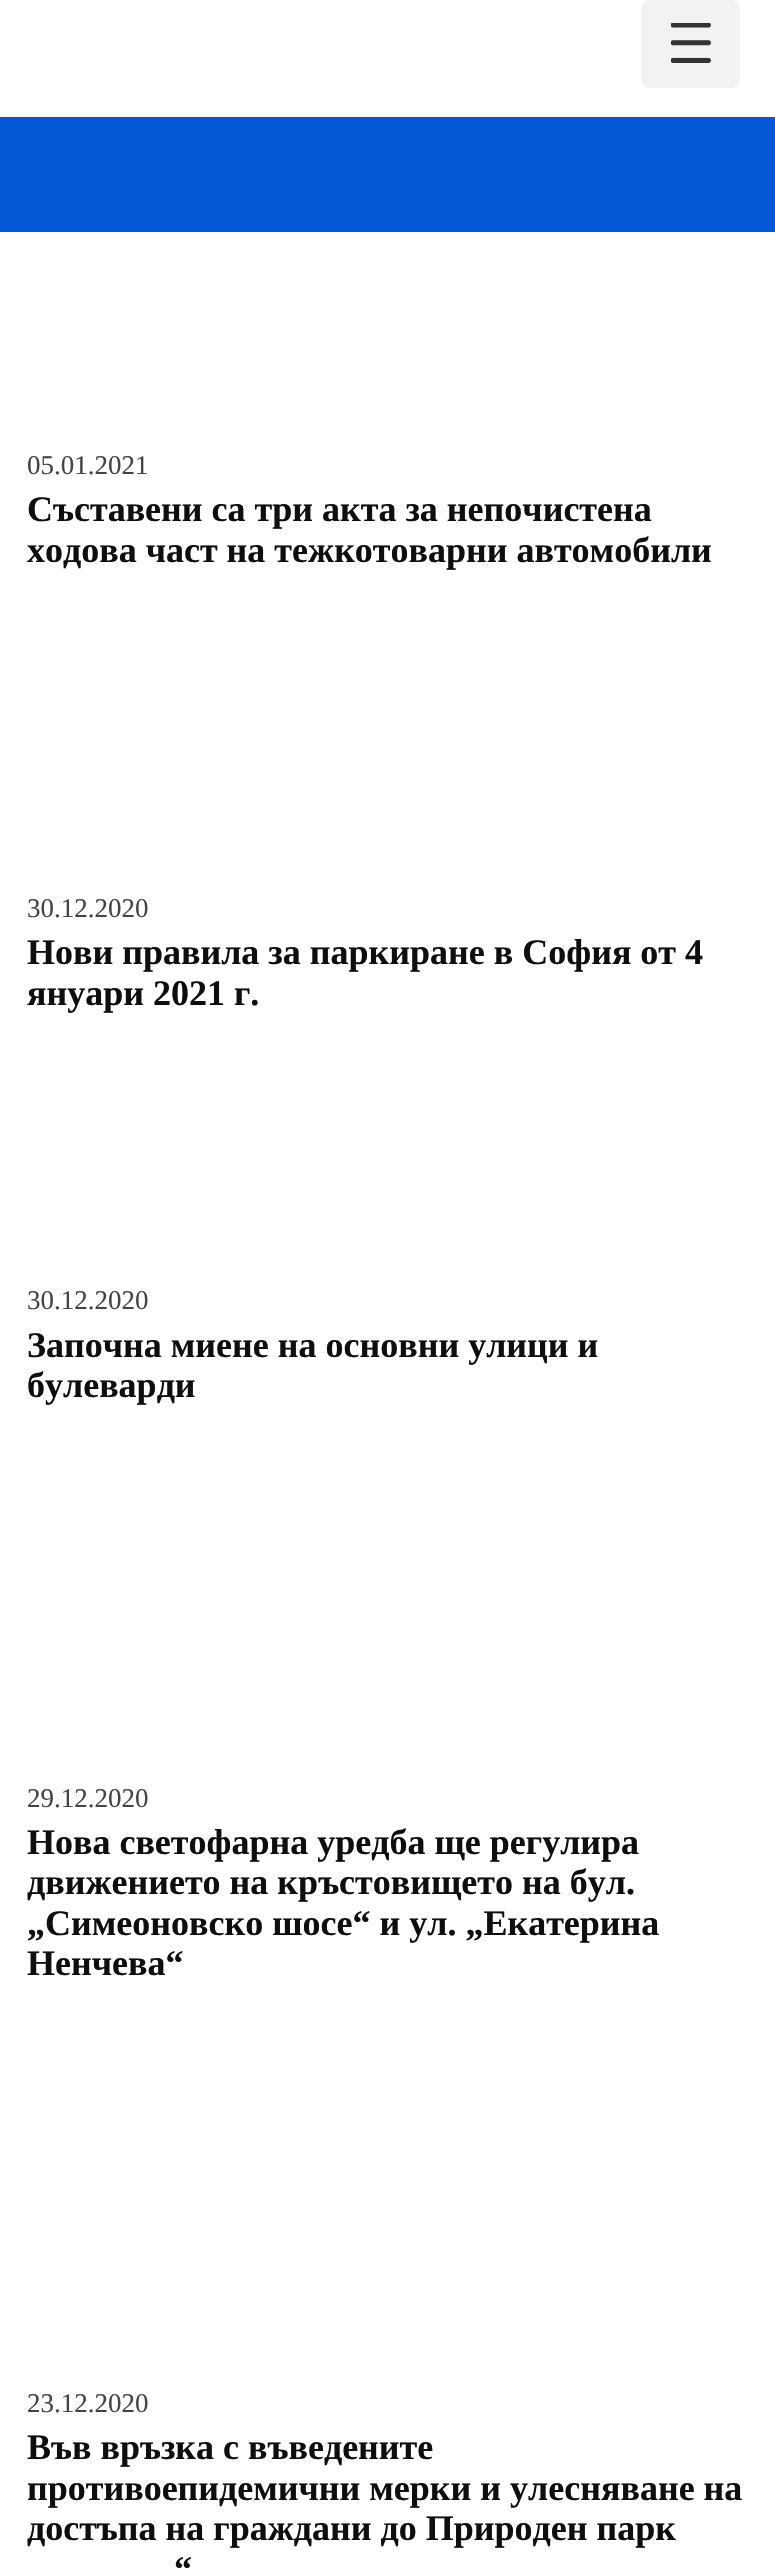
void draw(SkCanvas* canvas) {
  SkPaint paint;
  paint.setAntiAlias(true);
  auto face = [&](const char* family, int weight, float size, bool italic = false) {
    SkFontStyle style(weight, SkFontStyle::kNormal_Width,
      italic ? SkFontStyle::kItalic_Slant : SkFontStyle::kUpright_Slant);
    SkFont result(fontMgr->matchFamilyStyle(family, style), size);
    result.setSubpixel(true);
    return result;
  };
  auto paste = [&](const char* path, float x, float y, float w, float h) {
    auto image = SkImages::DeferredFromEncodedData(SkData::MakeFromFileName(path));
    canvas->drawImageRect(image, SkRect::MakeXYWH(x, y, w, h), SkSamplingOptions());
  };
  canvas->clear(0xffffffff);
  paint.setColor(0xff0458d5);
  canvas->drawRect(SkRect::MakeXYWH(0, 117, 775, 115), paint);
  paint.setColor(0xfff2f2f2);
  canvas->drawRoundRect(SkRect::MakeXYWH(641, 0, 99, 88), 9, 9, paint);
  paste("img/1.png", 671, 23, 40, 40);
  auto f0 = face("Liberation Serif", 400, 27);
  paint.setColor(0xff444444);
  canvas->drawString("05.01.2021", 27, 474, f0, paint);
  auto f1 = face("Liberation Serif", 700, 36);
  paint.setColor(0xff0e0e0e);
  canvas->drawString("Съставени са три акта за непочистена", 27, 521, f1, paint);
  canvas->drawString("ходова част на тежкотоварни автомобили", 27, 562, f1, paint);
  paint.setColor(0xff444444);
  canvas->drawString("30.12.2020", 27, 917, f0, paint);
  paint.setColor(0xff0e0e0e);
  canvas->drawString("Нови правила за паркиране в София от 4", 27, 964, f1, paint);
  canvas->drawString("януари 2021 г.", 27, 1005, f1, paint);
  paint.setColor(0xff444444);
  canvas->drawString("30.12.2020", 27, 1309, f0, paint);
  paint.setColor(0xff0e0e0e);
  canvas->drawString("Започна миене на основни улици и", 27, 1357, f1, paint);
  canvas->drawString("булеварди", 27, 1397, f1, paint);
  paint.setColor(0xff444444);
  canvas->drawString("29.12.2020", 27, 1807, f0, paint);
  paint.setColor(0xff0e0e0e);
  {
    const struct { const char* s; float x, y; } items[] = {
      {"Нова светофарна уредба ще регулира", 27, 1854},
      {"движението на кръстовището на бул.", 27, 1894},
      {"„Симеоновско шосе“ и ул. „Екатерина", 27, 1935},
      {"Ненчева“", 27, 1975},
    };
    for (auto [s, x, y] : items) {
      canvas->drawString(s, x, y, f1, paint);
    }
  }
  paint.setColor(0xff444444);
  canvas->drawString("23.12.2020", 27, 2412, f0, paint);
  paint.setColor(0xff0e0e0e);
  {
    const struct { const char* s; float x, y; } items[] = {
      {"Във връзка с въведените", 27, 2459},
      {"противоепидемични мерки и улесняване на", 27, 2500},
      {"достъпа на граждани до Природен парк", 27, 2540},
      {"“", 174, 2581},
    };
    for (auto [s, x, y] : items) {
      canvas->drawString(s, x, y, f1, paint);
    }
  }
}
